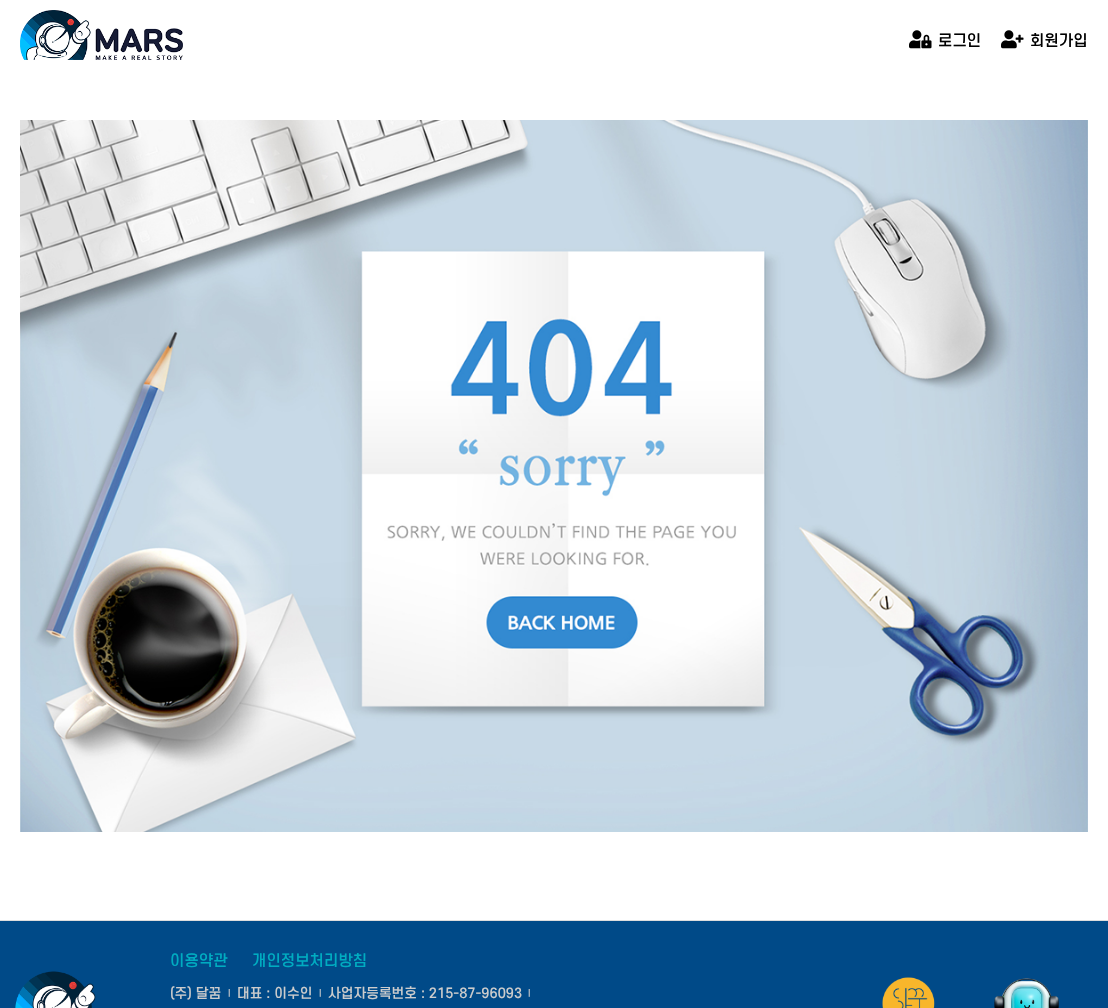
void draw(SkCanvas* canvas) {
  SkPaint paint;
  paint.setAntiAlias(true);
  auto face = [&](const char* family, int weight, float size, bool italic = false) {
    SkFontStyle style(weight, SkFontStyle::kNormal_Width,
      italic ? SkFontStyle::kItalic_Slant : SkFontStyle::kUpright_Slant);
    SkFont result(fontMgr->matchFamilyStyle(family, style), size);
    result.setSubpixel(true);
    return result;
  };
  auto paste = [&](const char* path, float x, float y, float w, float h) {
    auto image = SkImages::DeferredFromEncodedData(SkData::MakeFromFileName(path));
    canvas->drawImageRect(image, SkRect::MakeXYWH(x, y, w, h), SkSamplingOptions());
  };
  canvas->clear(0xffffffff);
  paste("img/1.png", 20, 10, 163, 50);
  paste("img/2.png", 909, 30, 23, 19);
  paste("img/3.png", 1001, 30, 23, 19);
  paste("img/4.png", 20, 120, 1068, 712);
  paint.setColor(0xff004a88);
  canvas->drawRect(SkRect::MakeXYWH(0, 921, 1108, 87), paint);
  paint.setColor(0xffdddddd);
  canvas->drawRect(SkRect::MakeXYWH(0, 920, 1108, 1), paint);
  paste("img/5.png", 15, 971, 81, 37);
  paste("img/6.png", 882, 977, 53, 31);
  paste("img/7.png", 994, 978, 65, 30);
  auto f0 = face("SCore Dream", 500, 15);
  paint.setColor(0xff000000);
  canvas->drawString("로그인", 938, 46, f0, paint);
  canvas->drawString("회원가입", 1030, 46, f0, paint);
  paint.setColor(0xff00acc1);
  canvas->drawString("이용약관", 170, 966, f0, paint);
  canvas->drawString("개인정보처리방침", 252, 966, f0, paint);
  auto f1 = face("SCore Dream", 500, 13.25f);
  paint.setColor(0xffcccccc);
  canvas->drawString("(주) 달꿈", 170, 998, f1, paint);
  auto f2 = face("SCore Dream", 500, 8);
  canvas->drawString("|", 228, 996, f2, paint);
  canvas->drawString("대표 : 이수인", 237, 998, f1, paint);
  canvas->drawString("|", 319, 996, f2, paint);
  canvas->drawString("사업자등록번호 : 215-87-96093", 328, 998, f1, paint);
  canvas->drawString("|", 528, 996, f2, paint);
}
